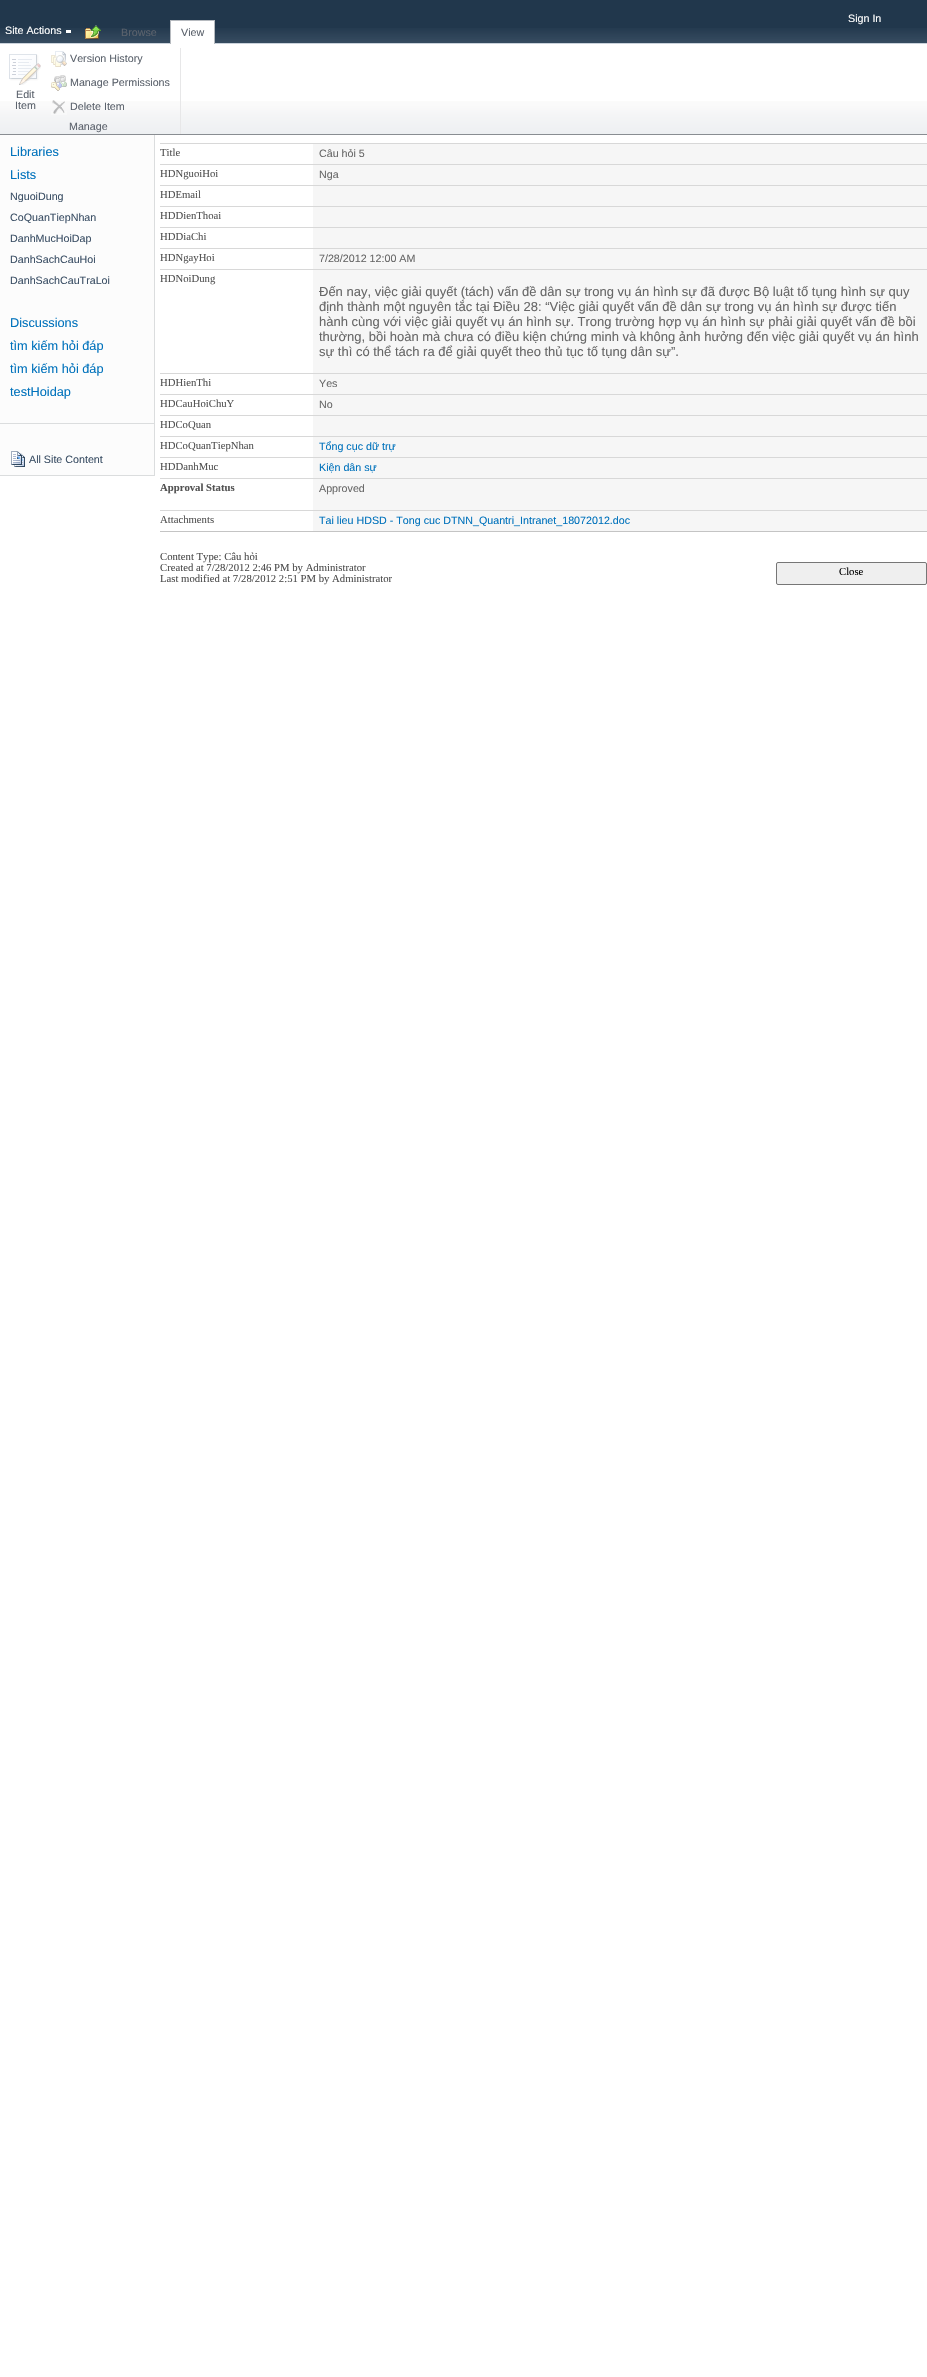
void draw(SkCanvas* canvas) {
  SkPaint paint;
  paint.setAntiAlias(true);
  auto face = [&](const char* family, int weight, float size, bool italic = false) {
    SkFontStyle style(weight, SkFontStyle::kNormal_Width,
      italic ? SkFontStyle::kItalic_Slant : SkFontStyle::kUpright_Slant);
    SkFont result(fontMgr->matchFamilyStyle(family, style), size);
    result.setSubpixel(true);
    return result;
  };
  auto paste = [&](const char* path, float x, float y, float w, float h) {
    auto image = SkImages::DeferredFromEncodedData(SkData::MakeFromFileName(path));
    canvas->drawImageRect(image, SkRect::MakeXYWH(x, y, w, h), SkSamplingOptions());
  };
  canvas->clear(0xffffffff);
  paint.setColor(0xff21374c);
  canvas->drawRect(SkRect::MakeXYWH(0, 0, 927, 43), paint);
  paste("img/1.png", 0, 28, 927, 15);
  paint.setColor(0xffcad2db);
  canvas->drawRect(SkRect::MakeXYWH(0, 43, 927, 1), paint);
  paint.setColor(0xffffffff);
  canvas->drawRect(SkRect::MakeXYWH(66, 30, 5, 3), paint);
  paste("img/2.png", 85, 25, 16, 15);
  {
    const struct { float x, y, w, h; SkColor color; } items[] = {
      {171, 21, 43, 23, 0xffffffff},
      {170, 20, 45, 1, 0xffb6babf},
      {214, 20, 1, 24, 0xffb6babf},
      {170, 20, 1, 24, 0xffb6babf},
    };
    for (auto [x, y, w, h, color] : items) {
      paint.setColor(color);
      canvas->drawRect(SkRect::MakeXYWH(x, y, w, h), paint);
    }
  }
  paste("img/3.png", 0, 101, 927, 33);
  paint.setColor(0xff898d92);
  canvas->drawRect(SkRect::MakeXYWH(0, 134, 927, 1), paint);
  paste("img/4.png", 9, 54, 32, 31);
  paste("img/5.png", 51, 51, 16, 16);
  paste("img/6.png", 51, 75, 16, 16);
  paint.setColor(0x4dffffff);
  canvas->drawRect(SkRect::MakeXYWH(51, 111, 16, 4), paint);
  paste("img/7.png", 52, 100, 13, 14);
  {
    const struct { float x, y, w, h; SkColor color; } items[] = {
      {180, 48, 1, 86, 0xffe7e7e8},
      {0, 135, 154, 340, 0xfffcfcfc},
      {154, 135, 1, 341, 0xffdbddde},
      {0, 475, 155, 1, 0xffdbddde},
      {0, 423, 154, 1, 0xffdbddde},
    };
    for (auto [x, y, w, h, color] : items) {
      paint.setColor(color);
      canvas->drawRect(SkRect::MakeXYWH(x, y, w, h), paint);
    }
  }
  paste("img/8.png", 11, 451, 14, 16);
  {
    const struct { float x, y, w, h; SkColor color; } items[] = {
      {160, 143, 767, 1, 0xffd8d8d8},
      {313, 144, 614, 20, 0xfff6f6f6},
      {160, 164, 767, 1, 0xffd8d8d8},
      {313, 165, 614, 20, 0xfff6f6f6},
      {160, 185, 767, 1, 0xffd8d8d8},
      {313, 186, 614, 20, 0xfff6f6f6},
      {160, 206, 767, 1, 0xffd8d8d8},
      {313, 207, 614, 20, 0xfff6f6f6},
      {160, 227, 767, 1, 0xffd8d8d8},
      {313, 228, 614, 20, 0xfff6f6f6},
      {160, 248, 767, 1, 0xffd8d8d8},
      {313, 249, 614, 20, 0xfff6f6f6},
      {160, 269, 767, 1, 0xffd8d8d8},
      {313, 270, 614, 103, 0xfff6f6f6},
      {160, 373, 767, 1, 0xffd8d8d8},
      {313, 374, 614, 20, 0xfff6f6f6},
      {160, 394, 767, 1, 0xffd8d8d8},
      {313, 395, 614, 20, 0xfff6f6f6},
      {160, 415, 767, 1, 0xffd8d8d8},
      {313, 416, 614, 20, 0xfff6f6f6},
      {160, 436, 767, 1, 0xffd8d8d8},
      {313, 437, 614, 20, 0xfff6f6f6},
      {160, 457, 767, 1, 0xffd8d8d8},
      {313, 458, 614, 20, 0xfff6f6f6},
      {160, 478, 767, 1, 0xffd8d8d8},
      {313, 479, 614, 31, 0xfff6f6f6},
      {160, 510, 767, 1, 0xffd8d8d8},
      {313, 511, 614, 20, 0xfff6f6f6},
      {160, 531, 767, 1, 0xffc4c4c4},
    };
    for (auto [x, y, w, h, color] : items) {
      paint.setColor(color);
      canvas->drawRect(SkRect::MakeXYWH(x, y, w, h), paint);
    }
  }
  paint.setColor(0xffefefef);
  canvas->drawRoundRect(SkRect::MakeXYWH(776.5f, 562.5f, 150, 22), 1.5f, 1.5f, paint);
  paint.setStroke(true);
  paint.setStrokeWidth(1);
  paint.setColor(0xff767676);
  canvas->drawRoundRect(SkRect::MakeXYWH(776.5f, 562.5f, 150, 22), 1.5f, 1.5f, paint);
  auto f0 = face("Liberation Sans", 400, 10.7f);
  paint.setStroke(false);
  paint.setColor(0xffffffff);
  canvas->drawString("Sign In", 848, 22, f0, paint);
  canvas->drawString("Site Actions", 5, 34, f0, paint);
  paint.setColor(0xff5b626c);
  {
    const struct { const char* s; float x, y; } items[] = {
      {"Browse", 121, 36},
      {"View", 181, 36},
      {"Edit", 16, 98},
      {"Item", 15, 109},
      {"Version History", 70, 62},
      {"Manage Permissions", 70, 86},
      {"Delete Item", 70, 110},
      {"Manage", 69, 130},
    };
    for (auto [s, x, y] : items) {
      canvas->drawString(s, x, y, f0, paint);
    }
  }
  auto f1 = face("Liberation Sans", 400, 12.75f);
  paint.setColor(0xff0072bc);
  canvas->drawString("Libraries", 10, 156, f1, paint);
  canvas->drawString("Lists", 10, 179, f1, paint);
  canvas->save();
  canvas->clipRect(SkRect::MakeXYWH(10, 190, 140, 12));
  paint.setColor(0xff3b4f65);
  canvas->drawString("NguoiDung", 10, 200, f0, paint);
  canvas->restore();
  {
    const struct { const char* s; float x, y; } items[] = {
      {"CoQuanTiepNhan", 10, 221},
      {"DanhMucHoiDap", 10, 242},
      {"DanhSachCauHoi", 10, 263},
      {"DanhSachCauTraLoi", 10, 284},
    };
    for (auto [s, x, y] : items) {
      canvas->drawString(s, x, y, f0, paint);
    }
  }
  paint.setColor(0xff0072bc);
  {
    const struct { const char* s; float x, y; } items[] = {
      {"Discussions", 10, 327},
      {"tìm kiếm hỏi đáp", 10, 350},
      {"tìm kiếm hỏi đáp", 10, 373},
      {"testHoidap", 10, 396},
    };
    for (auto [s, x, y] : items) {
      canvas->drawString(s, x, y, f1, paint);
    }
  }
  paint.setColor(0xff3b4f65);
  canvas->drawString("All Site Content", 29, 463, f0, paint);
  auto f2 = face("Liberation Serif", 400, 10.7f);
  paint.setColor(0xff525252);
  canvas->drawString("Title", 160, 156, f2, paint);
  paint.setColor(0xff676767);
  canvas->drawString("Câu hỏi 5", 319, 157, f0, paint);
  paint.setColor(0xff525252);
  canvas->drawString("HDNguoiHoi", 160, 177, f2, paint);
  paint.setColor(0xff676767);
  canvas->drawString("Nga", 319, 178, f0, paint);
  paint.setColor(0xff525252);
  {
    const struct { const char* s; float x, y; } items[] = {
      {"HDEmail", 160, 198},
      {"HDDienThoai", 160, 219},
      {"HDDiaChi", 160, 240},
      {"HDNgayHoi", 160, 261},
    };
    for (auto [s, x, y] : items) {
      canvas->drawString(s, x, y, f2, paint);
    }
  }
  paint.setColor(0xff676767);
  canvas->drawString("7/28/2012 12:00 AM", 319, 262, f0, paint);
  paint.setColor(0xff525252);
  canvas->drawString("HDNoiDung", 160, 282, f2, paint);
  auto f3 = face("Liberation Sans", 400, 13);
  paint.setColor(0xff676767);
  {
    const struct { const char* s; float x, y; } items[] = {
      {"Đến nay, việc giải quyết (tách) vấn đề dân sự trong vụ án hình sự đã được Bộ luật tố tụng hình sự quy", 319, 296},
      {"định thành một nguyên tắc tại Điều 28: “Việc giải quyết vấn đề dân sự trong vụ án hình sự được tiến", 319, 311},
      {"hành cùng với việc giải quyết vụ án hình sự. Trong trường hợp vụ án hình sự phải giải quyết vấn đề bồi", 319, 326},
      {"thường, bồi hoàn mà chưa có điều kiện chứng minh và không ảnh hưởng đến việc giải quyết vụ án hình", 319, 341},
      {"sự thì có thể tách ra để giải quyết theo thủ tục tố tụng dân sự”.", 319, 356},
    };
    for (auto [s, x, y] : items) {
      canvas->drawString(s, x, y, f3, paint);
    }
  }
  paint.setColor(0xff525252);
  canvas->drawString("HDHienThi", 160, 386, f2, paint);
  paint.setColor(0xff676767);
  canvas->drawString("Yes", 319, 387, f0, paint);
  paint.setColor(0xff525252);
  canvas->drawString("HDCauHoiChuY", 160, 407, f2, paint);
  paint.setColor(0xff676767);
  canvas->drawString("No", 319, 408, f0, paint);
  paint.setColor(0xff525252);
  canvas->drawString("HDCoQuan", 160, 428, f2, paint);
  canvas->drawString("HDCoQuanTiepNhan", 160, 449, f2, paint);
  paint.setColor(0xff0072bc);
  canvas->drawString("Tổng cục dữ trự", 319, 450, f0, paint);
  paint.setColor(0xff525252);
  canvas->drawString("HDDanhMuc", 160, 470, f2, paint);
  paint.setColor(0xff0072bc);
  canvas->drawString("Kiện dân sự", 319, 471, f0, paint);
  auto f4 = face("Liberation Serif", 700, 10.7f);
  paint.setColor(0xff525252);
  canvas->drawString("Approval Status", 160, 491, f4, paint);
  paint.setColor(0xff676767);
  canvas->drawString("Approved", 319, 492, f0, paint);
  paint.setColor(0xff525252);
  canvas->drawString("Attachments", 160, 523, f2, paint);
  paint.setColor(0xff0072bc);
  canvas->drawString("Tai lieu HDSD - Tong cuc DTNN_Quantri_Intranet_18072012.doc", 319, 524, f0, paint);
  paint.setColor(0xff4c4c4c);
  {
    const struct { const char* s; float x, y; } items[] = {
      {"Content Type: Câu hỏi", 160, 560},
      {"Created at 7/28/2012 2:46 PM by Administrator", 160, 571},
      {"Last modified at 7/28/2012 2:51 PM by Administrator", 160, 582},
    };
    for (auto [s, x, y] : items) {
      canvas->drawString(s, x, y, f2, paint);
    }
  }
  paint.setColor(0xff000000);
  canvas->drawString("Close", 839, 575, f2, paint);
}
